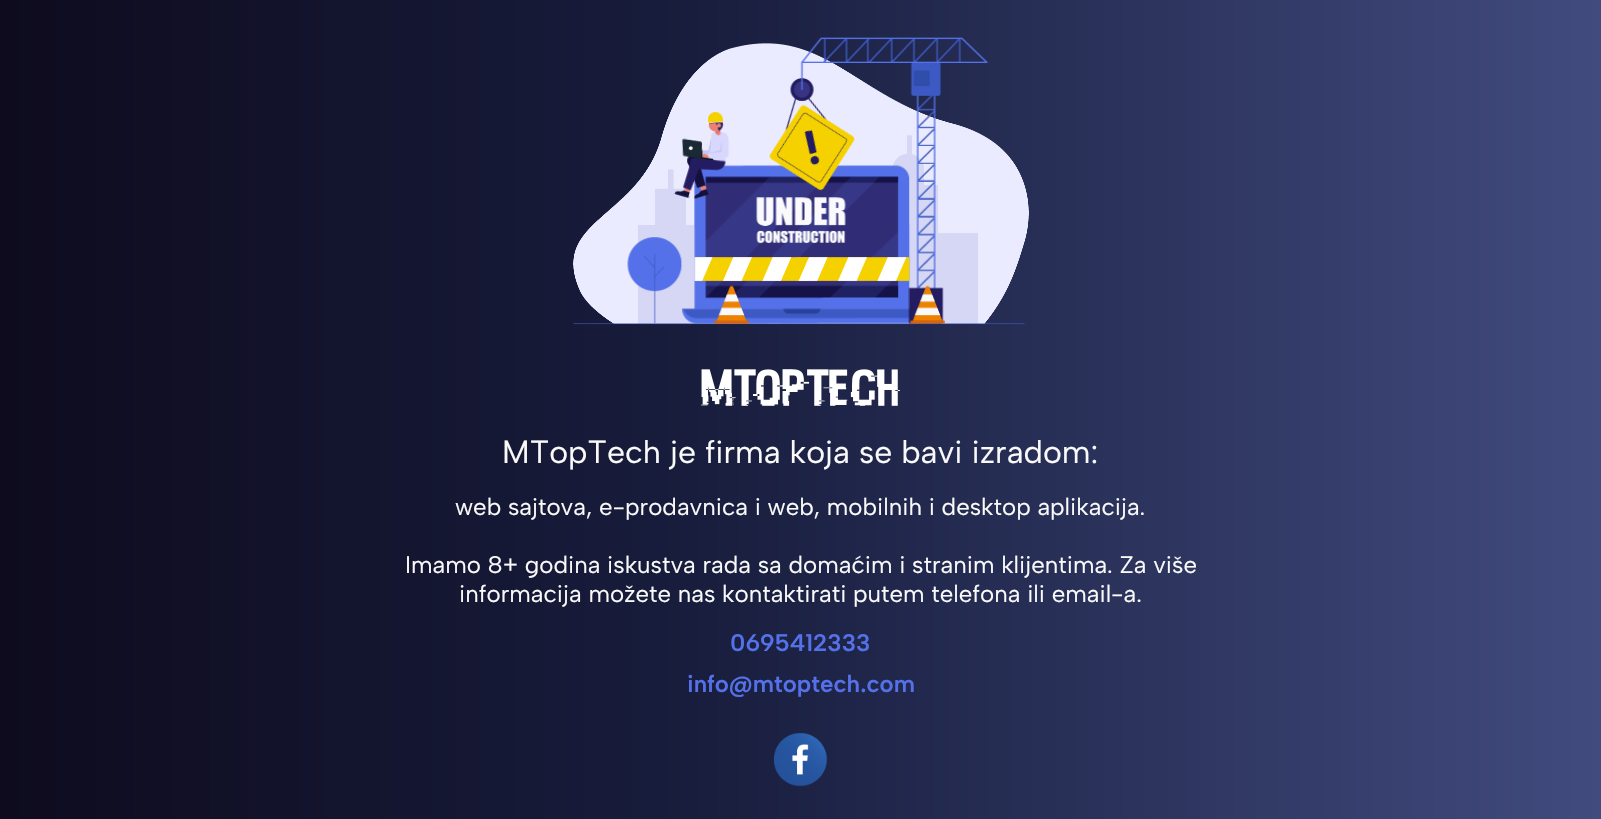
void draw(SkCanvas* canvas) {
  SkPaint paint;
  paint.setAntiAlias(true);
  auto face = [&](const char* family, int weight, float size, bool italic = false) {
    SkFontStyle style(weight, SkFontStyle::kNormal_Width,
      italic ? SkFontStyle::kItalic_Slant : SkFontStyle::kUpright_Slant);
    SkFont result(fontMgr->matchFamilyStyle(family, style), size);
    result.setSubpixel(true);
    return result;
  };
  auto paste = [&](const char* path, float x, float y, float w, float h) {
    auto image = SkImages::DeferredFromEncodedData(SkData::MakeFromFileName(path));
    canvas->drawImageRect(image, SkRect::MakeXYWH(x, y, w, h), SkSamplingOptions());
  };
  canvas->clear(0xffffffff);
  {
    const SkColor colors[] = {0xff0e0b1e, 0xff181d3d, 0xff414b7e};
    const float stops[] = {0, 0.43f, 1};
    const SkPoint ends[] = {{0, 402}, {1601, 402}};
    paint.setShader(SkGradientShader::MakeLinear(ends, colors, stops, 3, SkTileMode::kClamp));
    paint.setAlpha(255);
  }
  canvas->drawRect(SkRect::MakeXYWH(0, 0, 1601, 819), paint);
  paste("img/1.png", 573, 37, 456, 288);
  paste("img/2.png", 701, 369, 199, 37);
  paste("img/3.png", 773, 732, 55, 55);
  auto f0 = face("Albert Sans", 400, 32);
  paint.setShader(nullptr);
  paint.setColor(0xfffafafa);
  canvas->drawString("MTopTech je firma koja se bavi izradom:", 502, 463, f0, paint);
  auto f1 = face("Albert Sans", 400, 24);
  {
    const struct { const char* s; float x, y; } items[] = {
      {"web sajtova, e-prodavnica i web, mobilnih i desktop aplikacija.", 455, 515},
      {"Imamo 8+ godina iskustva rada sa domaćim i stranim klijentima. Za više", 405, 573},
      {"informacija možete nas kontaktirati putem telefona ili email-a.", 459, 602},
    };
    for (auto [s, x, y] : items) {
      canvas->drawString(s, x, y, f1, paint);
    }
  }
  auto f2 = face("Albert Sans", 600, 24);
  paint.setColor(0xff5571e9);
  canvas->drawString("0695412333", 730, 651, f2, paint);
  canvas->drawString("info@mtoptech.com", 687, 692, f2, paint);
}
